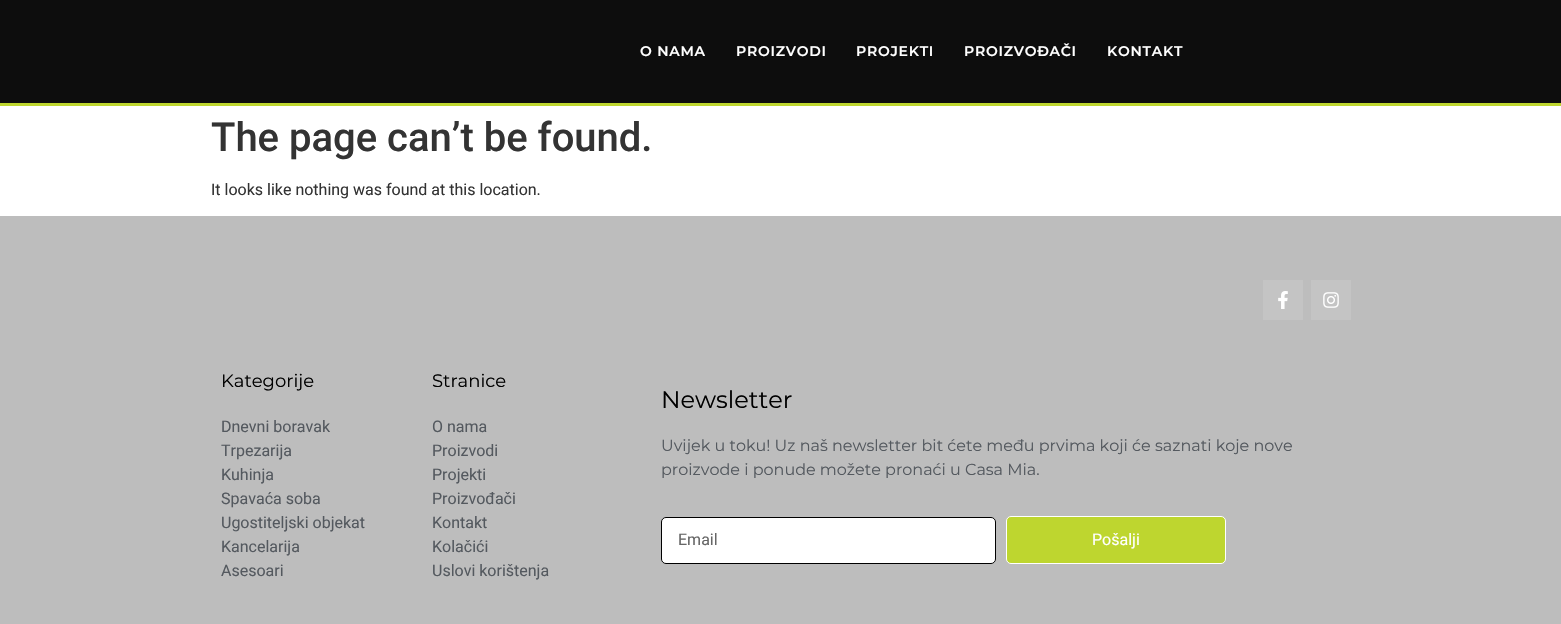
void draw(SkCanvas* canvas) {
  SkPaint paint;
  paint.setAntiAlias(true);
  auto face = [&](const char* family, int weight, float size, bool italic = false) {
    SkFontStyle style(weight, SkFontStyle::kNormal_Width,
      italic ? SkFontStyle::kItalic_Slant : SkFontStyle::kUpright_Slant);
    SkFont result(fontMgr->matchFamilyStyle(family, style), size);
    result.setSubpixel(true);
    return result;
  };
  auto writeSpaced = [&](const char* s, float x, float y, const SkFont& font, const SkPaint& ink, float letter, float word) {
    std::vector<SkGlyphID> glyphs(font.countText(s, strlen(s), SkTextEncoding::kUTF8));
    std::vector<float> xs(glyphs.size());
    font.textToGlyphs(s, strlen(s), SkTextEncoding::kUTF8, glyphs);
    font.getXPos(glyphs, xs, x);
    float extra = 0;
    for (size_t i = 0; i < glyphs.size(); i++) {
      xs[i] += extra;
      extra += letter + word * (glyphs[i] == font.unicharToGlyph(' '));
    }
    canvas->drawTextBlob(SkTextBlob::MakeFromPosHGlyphs(glyphs, xs, y, font), 0, 0, ink);
  };
  auto paste = [&](const char* path, float x, float y, float w, float h) {
    auto image = SkImages::DeferredFromEncodedData(SkData::MakeFromFileName(path));
    canvas->drawImageRect(image, SkRect::MakeXYWH(x, y, w, h), SkSamplingOptions());
  };
  canvas->clear(0xffffffff);
  {
    const struct { float x, y, w, h; SkColor color; } items[] = {
      {0, 103, 1561, 3, 0xffbed62f},
      {0, 0, 1561, 103, 0xff0d0d0d},
      {0, 216, 1561, 408, 0xffbdbdbd},
      {1263, 280, 40, 40, 0xffc4c4c4},
    };
    for (auto [x, y, w, h, color] : items) {
      paint.setColor(color);
      canvas->drawRect(SkRect::MakeXYWH(x, y, w, h), paint);
    }
  }
  paste("img/1.png", 1278, 291, 10, 18);
  canvas->drawRect(SkRect::MakeXYWH(1311, 280, 40, 40), paint);
  paste("img/2.png", 1323, 292, 16, 16);
  paint.setColor(0xffffffff);
  canvas->drawRoundRect(SkRect::MakeXYWH(661.5f, 517.5f, 334, 46), 4.5f, 4.5f, paint);
  paint.setStroke(true);
  paint.setStrokeWidth(1);
  paint.setColor(0xff000000);
  canvas->drawRoundRect(SkRect::MakeXYWH(661.5f, 517.5f, 334, 46), 4.5f, 4.5f, paint);
  paint.setStroke(false);
  paint.setColor(0xffbed62f);
  canvas->drawRoundRect(SkRect::MakeXYWH(1006.5f, 516.5f, 219, 47), 4.5f, 4.5f, paint);
  paint.setStroke(true);
  paint.setColor(0xffffffff);
  canvas->drawRoundRect(SkRect::MakeXYWH(1006.5f, 516.5f, 219, 47), 4.5f, 4.5f, paint);
  auto f0 = face("Montserrat", 600, 14);
  paint.setStroke(false);
  {
    const struct { const char* s; float x, y; } items[] = {
      {"O NAMA", 640, 56},
      {"PROIZVODI", 736, 56},
      {"PROJEKTI", 856, 56},
      {"PROIZVOĐAČI", 964, 56},
      {"KONTAKT", 1107, 56},
    };
    for (auto [s, x, y] : items) {
      writeSpaced(s, x, y, f0, paint, 0.75f, 0);
    }
  }
  auto f1 = face("Roboto", 500, 40);
  paint.setColor(0xff333333);
  canvas->drawString("The page can’t be found.", 211, 151, f1, paint);
  auto f2 = face("Roboto", 400, 16);
  canvas->drawString("It looks like nothing was found at this location.", 211, 195, f2, paint);
  auto f3 = face("Montserrat", 400, 18);
  paint.setColor(0xff000000);
  canvas->drawString("Kategorije", 221, 387, f3, paint);
  paint.setColor(0xff54595f);
  {
    const struct { const char* s; float x, y; } items[] = {
      {"Dnevni boravak", 221, 432},
      {"Trpezarija", 221, 456},
      {"Kuhinja", 221, 480},
      {"Spavaća soba", 221, 504},
      {"Ugostiteljski objekat", 221, 528},
      {"Kancelarija", 221, 552},
      {"Asesoari", 221, 576},
    };
    for (auto [s, x, y] : items) {
      canvas->drawString(s, x, y, f2, paint);
    }
  }
  paint.setColor(0xff000000);
  canvas->drawString("Stranice", 432, 387, f3, paint);
  paint.setColor(0xff54595f);
  {
    const struct { const char* s; float x, y; } items[] = {
      {"O nama", 432, 432},
      {"Proizvodi", 432, 456},
      {"Projekti", 432, 480},
      {"Proizvođači", 432, 504},
      {"Kontakt", 432, 528},
      {"Kolačići", 432, 552},
      {"Uslovi korištenja", 432, 576},
    };
    for (auto [s, x, y] : items) {
      canvas->drawString(s, x, y, f2, paint);
    }
  }
  auto f4 = face("Montserrat", 400, 24);
  paint.setColor(0xff000000);
  canvas->drawString("Newsletter", 661, 408, f4, paint);
  auto f5 = face("Montserrat", 400, 16);
  paint.setColor(0xff54595f);
  canvas->drawString("Uvijek u toku! Uz naš newsletter bit ćete među prvima koji će saznati koje nove", 661, 451, f5, paint);
  canvas->drawString("proizvode i ponude možete pronaći u Casa Mia.", 661, 475, f5, paint);
  paint.setColor(0xff666666);
  canvas->drawString("Email", 678, 545, f2, paint);
  paint.setColor(0xffffffff);
  canvas->drawString("Pošalji", 1092, 545, f2, paint);
}
